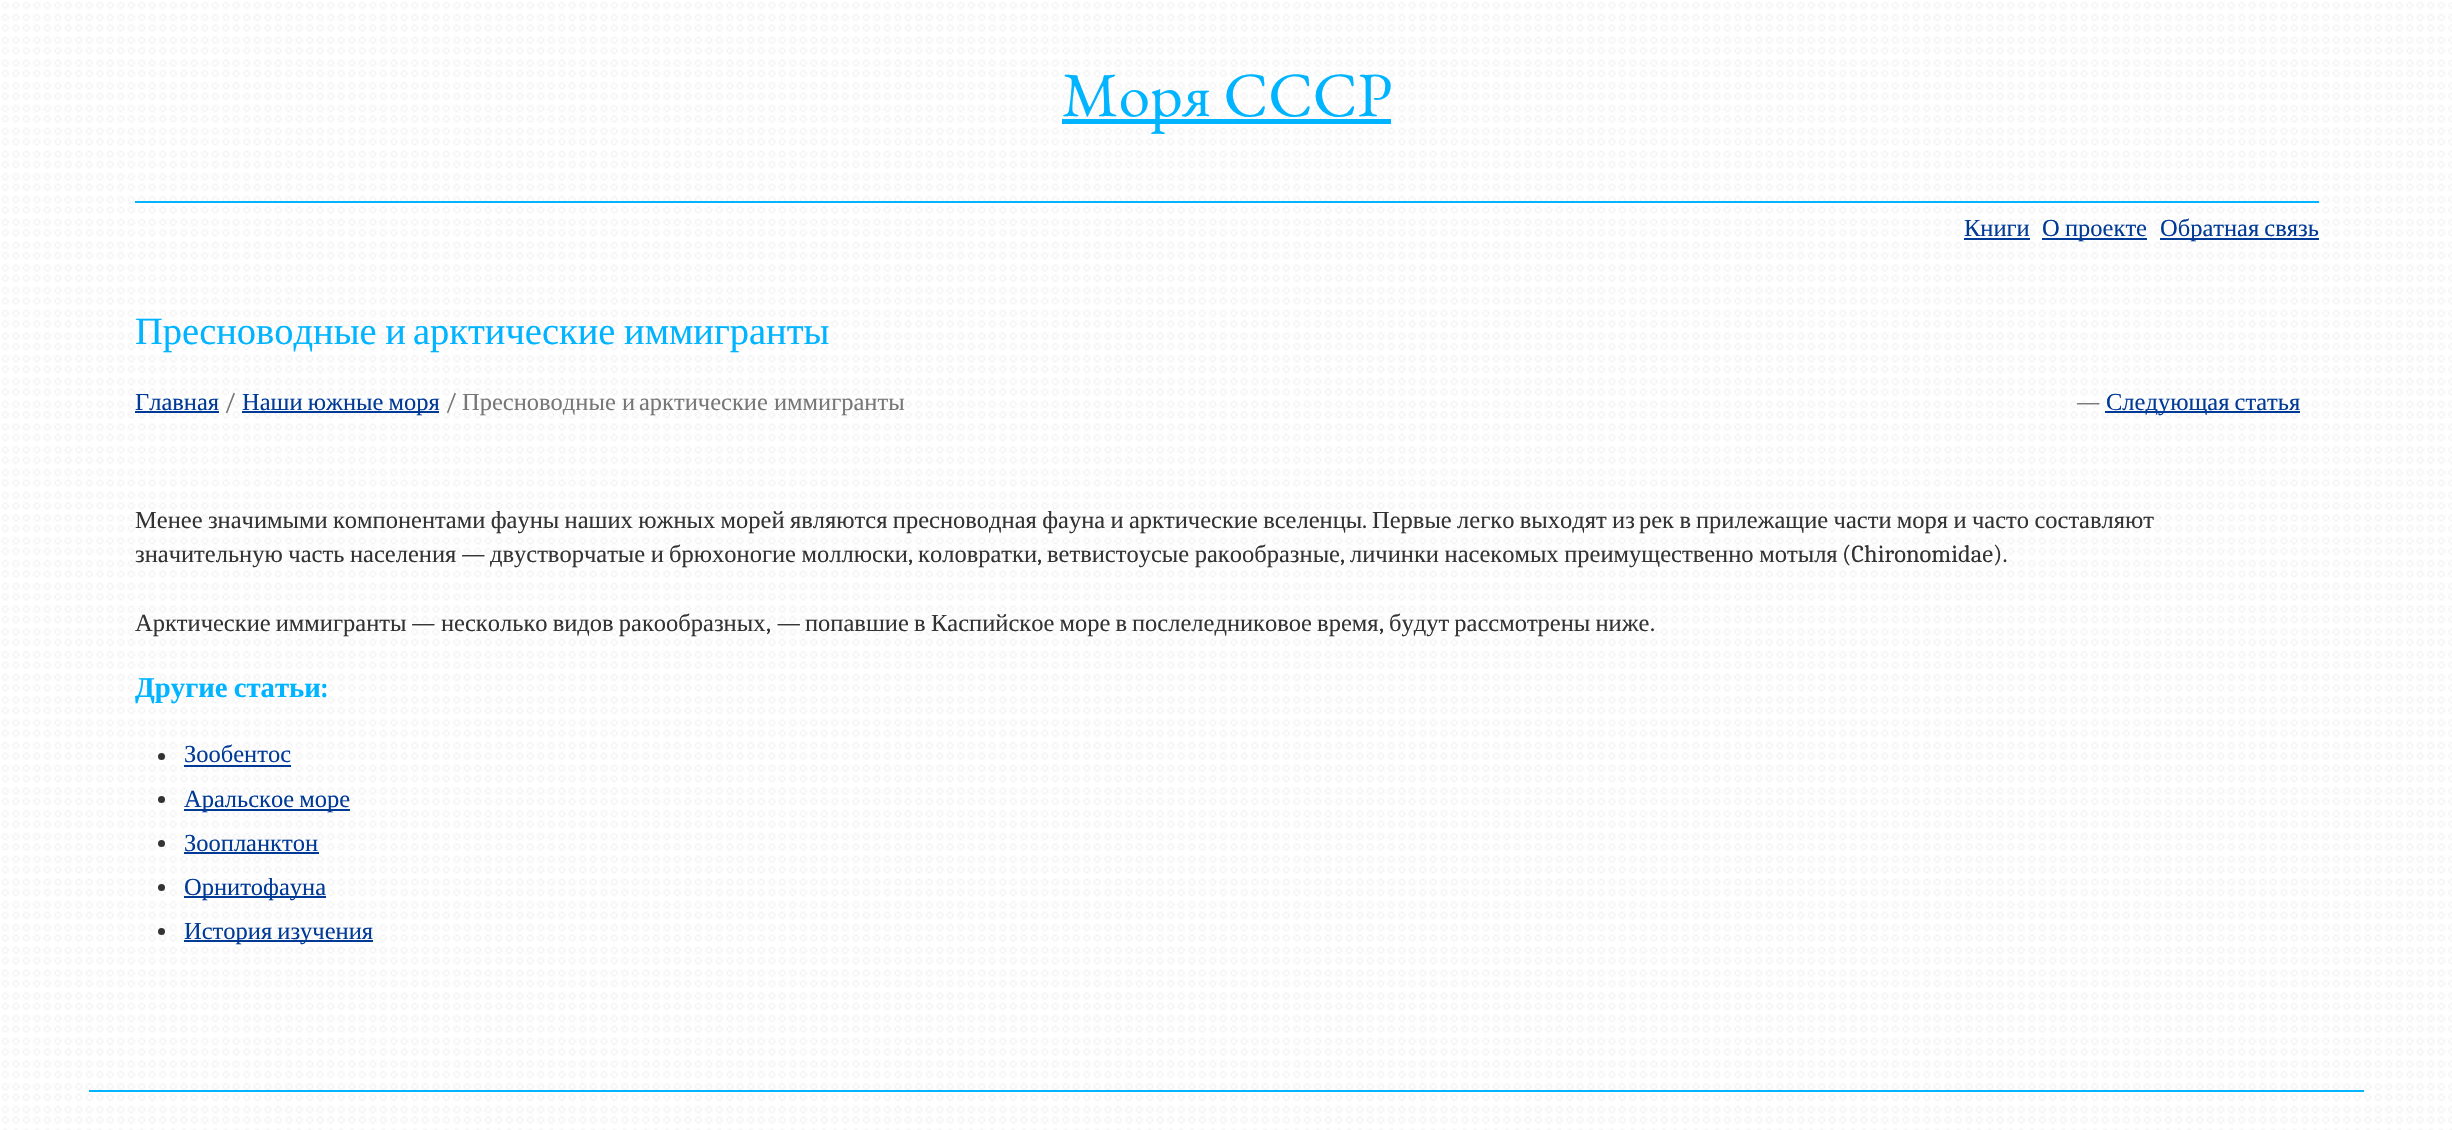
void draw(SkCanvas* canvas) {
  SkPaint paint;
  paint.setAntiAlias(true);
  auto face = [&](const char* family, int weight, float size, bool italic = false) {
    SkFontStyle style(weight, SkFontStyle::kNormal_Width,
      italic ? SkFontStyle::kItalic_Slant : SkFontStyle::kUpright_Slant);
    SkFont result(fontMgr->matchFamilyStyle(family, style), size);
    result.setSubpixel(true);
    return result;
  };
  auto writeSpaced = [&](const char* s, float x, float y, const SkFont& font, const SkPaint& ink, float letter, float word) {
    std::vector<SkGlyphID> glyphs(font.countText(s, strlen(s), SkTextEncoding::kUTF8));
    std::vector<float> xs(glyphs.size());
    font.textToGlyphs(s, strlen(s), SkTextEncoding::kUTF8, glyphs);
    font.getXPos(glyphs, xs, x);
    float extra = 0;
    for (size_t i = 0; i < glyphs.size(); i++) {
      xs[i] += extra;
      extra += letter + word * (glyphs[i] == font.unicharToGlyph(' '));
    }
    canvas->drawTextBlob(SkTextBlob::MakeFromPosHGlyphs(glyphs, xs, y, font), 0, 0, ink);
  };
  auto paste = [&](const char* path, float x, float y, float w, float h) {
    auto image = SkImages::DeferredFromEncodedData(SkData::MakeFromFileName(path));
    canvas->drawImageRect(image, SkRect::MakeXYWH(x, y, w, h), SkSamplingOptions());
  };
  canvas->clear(0xffffffff);
  paste("img/1.png", 1, 2, 2451, 1128);
  {
    const struct { float x, y, w, h; SkColor color; } items[] = {
      {135, 201, 2184, 2, 0xff00b4ff},
      {1062, 119, 329, 5, 0xff00b4ff},
      {1964, 238, 66, 2, 0xff003a97},
      {2042, 238, 105, 2, 0xff003a97},
      {2160, 238, 159, 2, 0xff003a97},
      {135, 411, 84, 2, 0xff003a97},
      {242, 411, 197, 2, 0xff003a97},
      {2105, 411, 195, 2, 0xff003a97},
    };
    for (auto [x, y, w, h, color] : items) {
      paint.setColor(color);
      canvas->drawRect(SkRect::MakeXYWH(x, y, w, h), paint);
    }
  }
  paint.setColor(0xff333333);
  canvas->drawCircle(161.5f, 756.5f, 3.5f, paint);
  paint.setColor(0xff003a97);
  canvas->drawRect(SkRect::MakeXYWH(184, 765, 107, 2), paint);
  paint.setColor(0xff333333);
  canvas->drawCircle(161.5f, 799.5f, 3.5f, paint);
  paint.setColor(0xff003a97);
  canvas->drawRect(SkRect::MakeXYWH(184, 809, 166, 2), paint);
  paint.setColor(0xff333333);
  canvas->drawCircle(161.5f, 843.5f, 3.5f, paint);
  paint.setColor(0xff003a97);
  canvas->drawRect(SkRect::MakeXYWH(184, 852, 135, 2), paint);
  paint.setColor(0xff333333);
  canvas->drawCircle(161.5f, 887.5f, 3.5f, paint);
  paint.setColor(0xff003a97);
  canvas->drawRect(SkRect::MakeXYWH(184, 896, 142, 2), paint);
  paint.setColor(0xff333333);
  canvas->drawCircle(161.5f, 931.5f, 3.5f, paint);
  paint.setColor(0xff003a97);
  canvas->drawRect(SkRect::MakeXYWH(184, 940, 189, 2), paint);
  paint.setColor(0xff00b4ff);
  canvas->drawRect(SkRect::MakeXYWH(89, 1090, 2275, 2), paint);
  auto f0 = face("EB Garamond", 400, 63);
  canvas->drawString("Моря СССР", 1062, 116, f0, paint);
  auto f1 = face("Liberation Serif", 400, 24.5f);
  paint.setColor(0xff003a97);
  {
    const struct { const char* s; float x, y; } items[] = {
      {"Книги", 1964, 236},
      {"О", 2042, 236},
      {"проекте", 2065, 236},
    };
    for (auto [s, x, y] : items) {
      canvas->drawString(s, x, y, f1, paint);
    }
  }
  writeSpaced("Обратная связь", 2160, 236, f1, paint, 0, -1);
  auto f2 = face("Liberation Serif", 400, 38.5f);
  paint.setColor(0xff00b4ff);
  writeSpaced("Пресноводные и", 135, 344, f2, paint, 0, -1);
  writeSpaced("арктические иммигранты", 413, 344, f2, paint, 0, -1);
  paint.setColor(0xff003a97);
  canvas->drawString("Главная", 135, 410, f1, paint);
  auto f3 = face("Caladea", 400, 24.5f);
  paint.setColor(0xff777777);
  canvas->drawString("/", 224, 410, f3, paint);
  paint.setColor(0xff003a97);
  writeSpaced("Наши южные моря", 242, 410, f1, paint, 0, -1);
  paint.setColor(0xff777777);
  canvas->drawString("/", 445, 410, f3, paint);
  canvas->drawString("Пресноводные и", 462, 410, f1, paint);
  canvas->drawString("арктические иммигранты", 639, 410, f1, paint);
  canvas->drawString("—", 2076, 410, f3, paint);
  paint.setColor(0xff003a97);
  writeSpaced("Следующая статья", 2106, 410, f1, paint, 0, -1);
  paint.setColor(0xff333333);
  writeSpaced("Менее значимыми компонентами фауны наших южных морей являются пресноводная фауна и", 135, 528, f1, paint, 0, -0.75f);
  writeSpaced("арктические вселенцы", 1129, 528, f1, paint, 0, -0.75f);
  canvas->drawString(".", 1362, 528, f3, paint);
  {
    const struct { const char* s; float x, y; } items[] = {
      {"Первые легко выходят из", 1372, 528},
      {"рек в", 1639, 528},
      {"прилежащие части моря и", 1696, 528},
      {"часто составляют", 1972, 528},
    };
    for (auto [s, x, y] : items) {
      writeSpaced(s, x, y, f1, paint, 0, -0.75f);
    }
  }
  writeSpaced("значительную часть населения", 135, 562, f1, paint, 0, -0.5f);
  canvas->drawString("—", 461, 562, f3, paint);
  writeSpaced("двустворчатые и", 490, 562, f1, paint, 0, -0.5f);
  writeSpaced("брюхоногие моллюски", 669, 562, f1, paint, 0, -0.5f);
  canvas->drawString("коловратки", 918, 562, f1, paint);
  writeSpaced("ветвистоусые ракообразные", 1047, 562, f1, paint, 0, -0.5f);
  writeSpaced("личинки насекомых преимущественно мотыля", 1350, 562, f1, paint, 0, -0.5f);
  {
    const struct { const char* s; float x, y; } items[] = {
      {"(Chironomidae).", 1842, 562},
      {",", 908, 562},
      {",", 1037, 562},
      {",", 1340, 562},
    };
    for (auto [s, x, y] : items) {
      canvas->drawString(s, x, y, f3, paint);
    }
  }
  writeSpaced("Арктические иммигранты", 135, 631, f1, paint, 0, -1);
  canvas->drawString("—", 411, 631, f3, paint);
  writeSpaced("несколько видов ракообразных", 441, 631, f1, paint, 0, -1);
  canvas->drawString(", —", 766, 631, f3, paint);
  {
    const struct { const char* s; float x, y; } items[] = {
      {"попавшие в", 805, 631},
      {"Каспийское море в", 931, 631},
      {"послеледниковое время", 1132, 631},
    };
    for (auto [s, x, y] : items) {
      writeSpaced(s, x, y, f1, paint, 0, -1);
    }
  }
  canvas->drawString(",", 1379, 631, f3, paint);
  writeSpaced("будут рассмотрены ниже", 1389, 631, f1, paint, 0, -1);
  canvas->drawString(".", 1650, 631, f3, paint);
  auto f4 = face("Liberation Serif", 700, 28.75f);
  paint.setColor(0xff00b4ff);
  writeSpaced("Другие статьи", 135, 697, f4, paint, 0, -1);
  auto f5 = face("Caladea", 700, 28.75f);
  canvas->drawString(":", 320, 697, f5, paint);
  paint.setColor(0xff003a97);
  canvas->drawString("Зообентос", 184, 762, f1, paint);
  writeSpaced("Аральское море", 184, 807, f1, paint, 0, -1);
  canvas->drawString("Зоопланктон", 184, 851, f1, paint);
  canvas->drawString("Орнитофауна", 184, 895, f1, paint);
  writeSpaced("История изучения", 184, 939, f1, paint, 0, -1);
}
